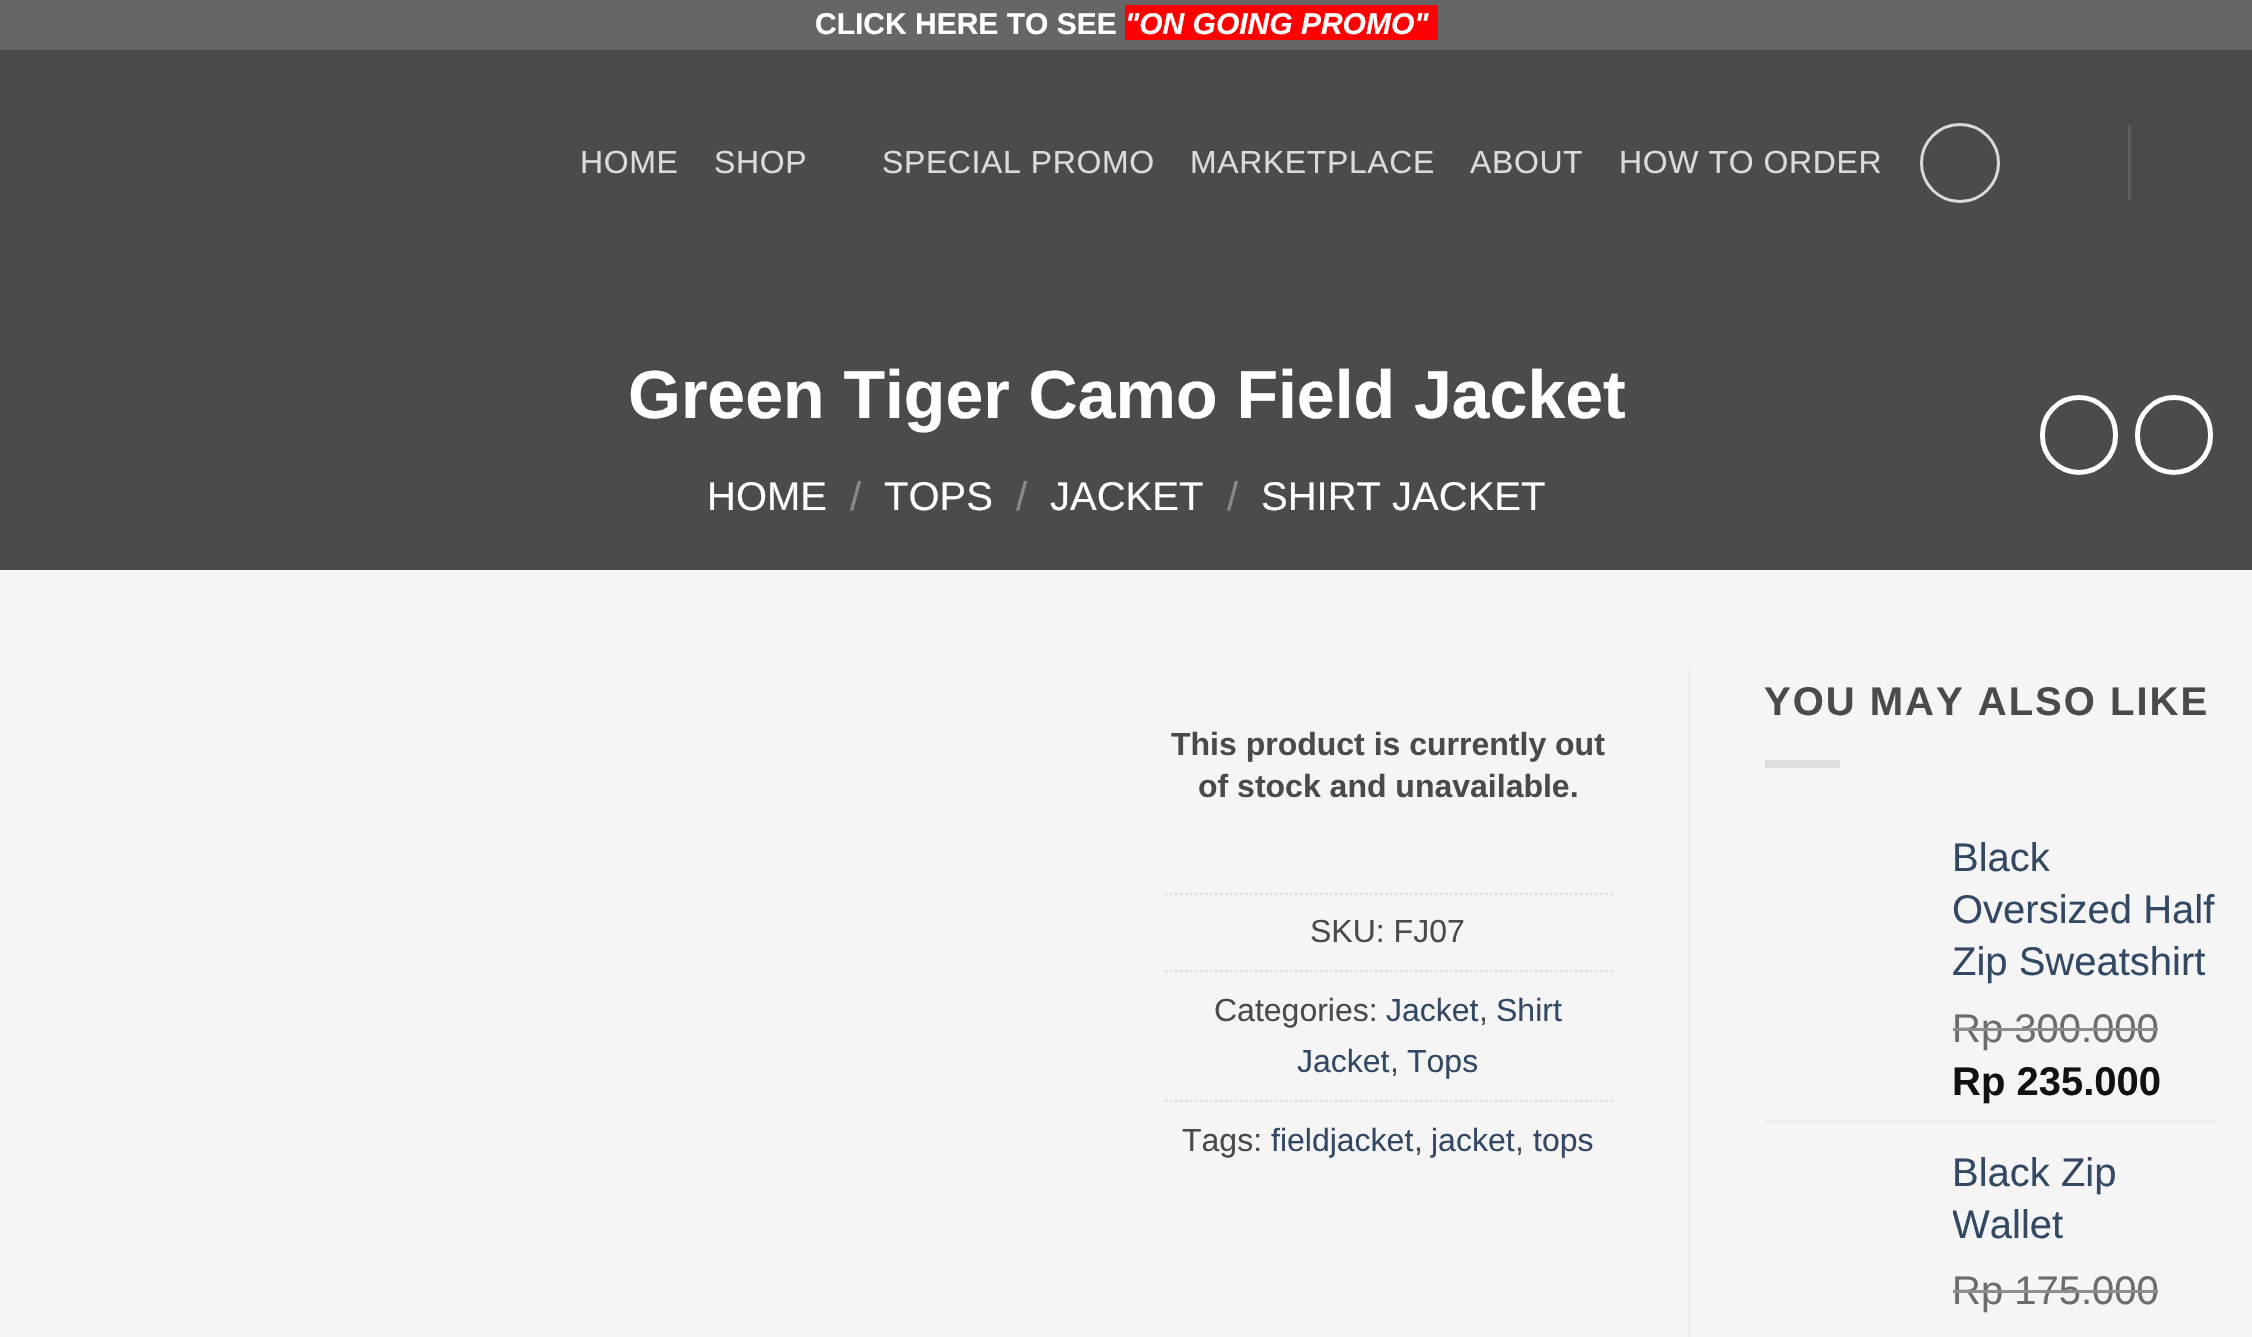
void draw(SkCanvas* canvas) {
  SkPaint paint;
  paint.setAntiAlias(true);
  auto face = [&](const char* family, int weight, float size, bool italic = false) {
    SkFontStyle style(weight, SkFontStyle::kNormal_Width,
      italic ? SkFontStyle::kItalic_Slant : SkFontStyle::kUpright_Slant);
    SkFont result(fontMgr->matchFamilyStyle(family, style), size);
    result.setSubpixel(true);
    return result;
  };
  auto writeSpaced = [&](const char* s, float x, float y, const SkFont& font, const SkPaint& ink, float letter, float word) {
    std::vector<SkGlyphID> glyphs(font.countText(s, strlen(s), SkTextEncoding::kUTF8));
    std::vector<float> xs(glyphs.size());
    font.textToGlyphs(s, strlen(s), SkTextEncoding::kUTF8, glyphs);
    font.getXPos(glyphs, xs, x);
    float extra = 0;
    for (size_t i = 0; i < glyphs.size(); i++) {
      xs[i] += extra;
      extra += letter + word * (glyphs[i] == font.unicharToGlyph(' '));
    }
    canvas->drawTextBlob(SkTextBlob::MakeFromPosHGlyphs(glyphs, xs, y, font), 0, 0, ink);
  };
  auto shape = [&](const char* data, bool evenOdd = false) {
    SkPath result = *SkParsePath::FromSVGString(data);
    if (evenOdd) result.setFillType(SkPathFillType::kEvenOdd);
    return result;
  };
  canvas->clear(0xfff5f5f5);
  {
    const struct { float x, y, w, h; SkColor color; } items[] = {
      {0, 0, 2252, 50, 0xff666666},
      {1125, 5, 313, 35, 0xffff0000},
      {0, 50, 2252, 520, 0xff4b4b4b},
    };
    for (auto [x, y, w, h, color] : items) {
      paint.setColor(color);
      canvas->drawRect(SkRect::MakeXYWH(x, y, w, h), paint);
    }
  }
  paint.setStroke(true);
  paint.setStrokeWidth(3);
  paint.setColor(0xffdbdbdb);
  canvas->drawCircle(1960, 163, 38.5f, paint);
  paint.setStroke(false);
  paint.setColor(0xff5d5d5d);
  canvas->drawRect(SkRect::MakeXYWH(2128, 125, 3, 75), paint);
  paint.setStroke(true);
  paint.setStrokeWidth(5);
  paint.setColor(0xffffffff);
  canvas->drawRoundRect(SkRect::MakeXYWH(2042.5f, 397.5f, 73, 75), 36.5f, 36.5f, paint);
  canvas->drawRoundRect(SkRect::MakeXYWH(2137.5f, 397.5f, 73, 75), 36.5f, 36.5f, paint);
  paint.setStroke(false);
  paint.setColor(0xffececec);
  canvas->drawRect(SkRect::MakeXYWH(1688, 670, 3, 667), paint);
  paint.setStroke(true);
  paint.setStrokeWidth(2.5f);
  paint.setColor(0xffdddddd);
  paint.setPathEffect(SkDashPathEffect::Make({{2.5f, 2.5f}}, 0));
  canvas->drawPath(shape("M1165 894H1612.5"), paint);
  paint.setPathEffect(nullptr);
  paint.setPathEffect(SkDashPathEffect::Make({{2.5f, 2.5f}}, 0));
  canvas->drawPath(shape("M1165 971H1612.5"), paint);
  paint.setPathEffect(nullptr);
  paint.setPathEffect(SkDashPathEffect::Make({{2.5f, 2.5f}}, 0));
  canvas->drawPath(shape("M1165 1101H1612.5"), paint);
  paint.setPathEffect(nullptr);
  paint.setStroke(false);
  canvas->drawRect(SkRect::MakeXYWH(1765, 760, 75, 8), paint);
  paint.setColor(0xffececec);
  canvas->drawRect(SkRect::MakeXYWH(1765, 1120, 450, 3), paint);
  auto f0 = face("Liberation Sans", 700, 30);
  paint.setColor(0xffffffff);
  canvas->drawString("CLICK HERE TO SEE", 815, 34, f0, paint);
  auto f1 = face("Liberation Sans", 700, 30, true);
  canvas->drawString("\"ON GOING PROMO\"", 1125, 34, f1, paint);
  auto f2 = face("Liberation Sans", 400, 32);
  paint.setColor(0xffdbdbdb);
  {
    const struct { const char* s; float x, y; } items[] = {
      {"HOME", 580, 173},
      {"SHOP", 714, 173},
      {"SPECIAL PROMO", 882, 173},
      {"MARKETPLACE", 1190, 173},
      {"ABOUT", 1470, 173},
      {"HOW TO ORDER", 1619, 173},
    };
    for (auto [s, x, y] : items) {
      writeSpaced(s, x, y, f2, paint, 0.6f, 0);
    }
  }
  auto f3 = face("Liberation Sans", 700, 68);
  paint.setColor(0xffffffff);
  canvas->drawString("Green Tiger Camo Field Jacket", 628, 418, f3, paint);
  auto f4 = face("Liberation Sans", 400, 40);
  canvas->drawString("HOME", 707, 510, f4, paint);
  paint.setColor(0xff8a8a8a);
  canvas->drawString("/", 850, 510, f4, paint);
  paint.setColor(0xffffffff);
  canvas->drawString("TOPS", 884, 510, f4, paint);
  paint.setColor(0xff8a8a8a);
  canvas->drawString("/", 1016, 510, f4, paint);
  paint.setColor(0xffffffff);
  canvas->drawString("JACKET", 1050, 510, f4, paint);
  paint.setColor(0xff8a8a8a);
  canvas->drawString("/", 1227, 510, f4, paint);
  paint.setColor(0xffffffff);
  canvas->drawString("SHIRT JACKET", 1261, 510, f4, paint);
  auto f5 = face("Liberation Sans", 700, 32);
  paint.setColor(0xff4a4a4a);
  canvas->drawString("This product is currently out", 1171, 755, f5, paint);
  canvas->drawString("of stock and unavailable.", 1198, 797, f5, paint);
  canvas->drawString("SKU: FJ07", 1310, 942, f2, paint);
  canvas->drawString("Categories:", 1214, 1021, f2, paint);
  paint.setColor(0xff334862);
  canvas->drawString("Jacket", 1386, 1021, f2, paint);
  paint.setColor(0xff4a4a4a);
  canvas->drawString(",", 1479, 1021, f2, paint);
  paint.setColor(0xff334862);
  canvas->drawString("Shirt", 1496, 1021, f2, paint);
  canvas->drawString("Jacket", 1297, 1072, f2, paint);
  paint.setColor(0xff4a4a4a);
  canvas->drawString(",", 1390, 1072, f2, paint);
  paint.setColor(0xff334862);
  canvas->drawString("Tops", 1407, 1072, f2, paint);
  paint.setColor(0xff4a4a4a);
  canvas->drawString("Tags:", 1182, 1151, f2, paint);
  paint.setColor(0xff334862);
  canvas->drawString("fieldjacket", 1271, 1151, f2, paint);
  paint.setColor(0xff4a4a4a);
  canvas->drawString(",", 1414, 1151, f2, paint);
  paint.setColor(0xff334862);
  canvas->drawString("jacket", 1431, 1151, f2, paint);
  paint.setColor(0xff4a4a4a);
  canvas->drawString(",", 1515, 1151, f2, paint);
  paint.setColor(0xff334862);
  canvas->drawString("tops", 1533, 1151, f2, paint);
  auto f6 = face("Liberation Sans", 700, 40);
  paint.setColor(0xff4a4a4a);
  writeSpaced("YOU MAY ALSO LIKE", 1764, 715, f6, paint, 2, 0);
  paint.setColor(0xff334862);
  {
    const struct { const char* s; float x, y; } items[] = {
      {"Black", 1952, 871},
      {"Oversized Half", 1952, 923},
      {"Zip Sweatshirt", 1952, 975},
    };
    for (auto [s, x, y] : items) {
      canvas->drawString(s, x, y, f4, paint);
    }
  }
  paint.setColor(0xff6c6c6c);
  canvas->drawString("Rp 300.000", 1952, 1042, f4, paint);
  paint.setColor(0xff8e8e8e);
  canvas->drawRect(SkRect::MakeXYWH(1953, 1028, 205, 3), paint);
  paint.setColor(0xff111111);
  canvas->drawString("Rp 235.000", 1952, 1095, f6, paint);
  paint.setColor(0xff334862);
  canvas->drawString("Black Zip", 1952, 1186, f4, paint);
  canvas->save();
  canvas->clipRect(SkRect::MakeXYWH(1953, 1148, 262, 105));
  canvas->drawString("Wallet", 1952, 1238, f4, paint);
  canvas->restore();
  paint.setColor(0xff6c6c6c);
  canvas->drawString("Rp 175.000", 1952, 1304, f4, paint);
  paint.setColor(0xff8e8e8e);
  canvas->drawRect(SkRect::MakeXYWH(1953, 1290, 205, 3), paint);
}
